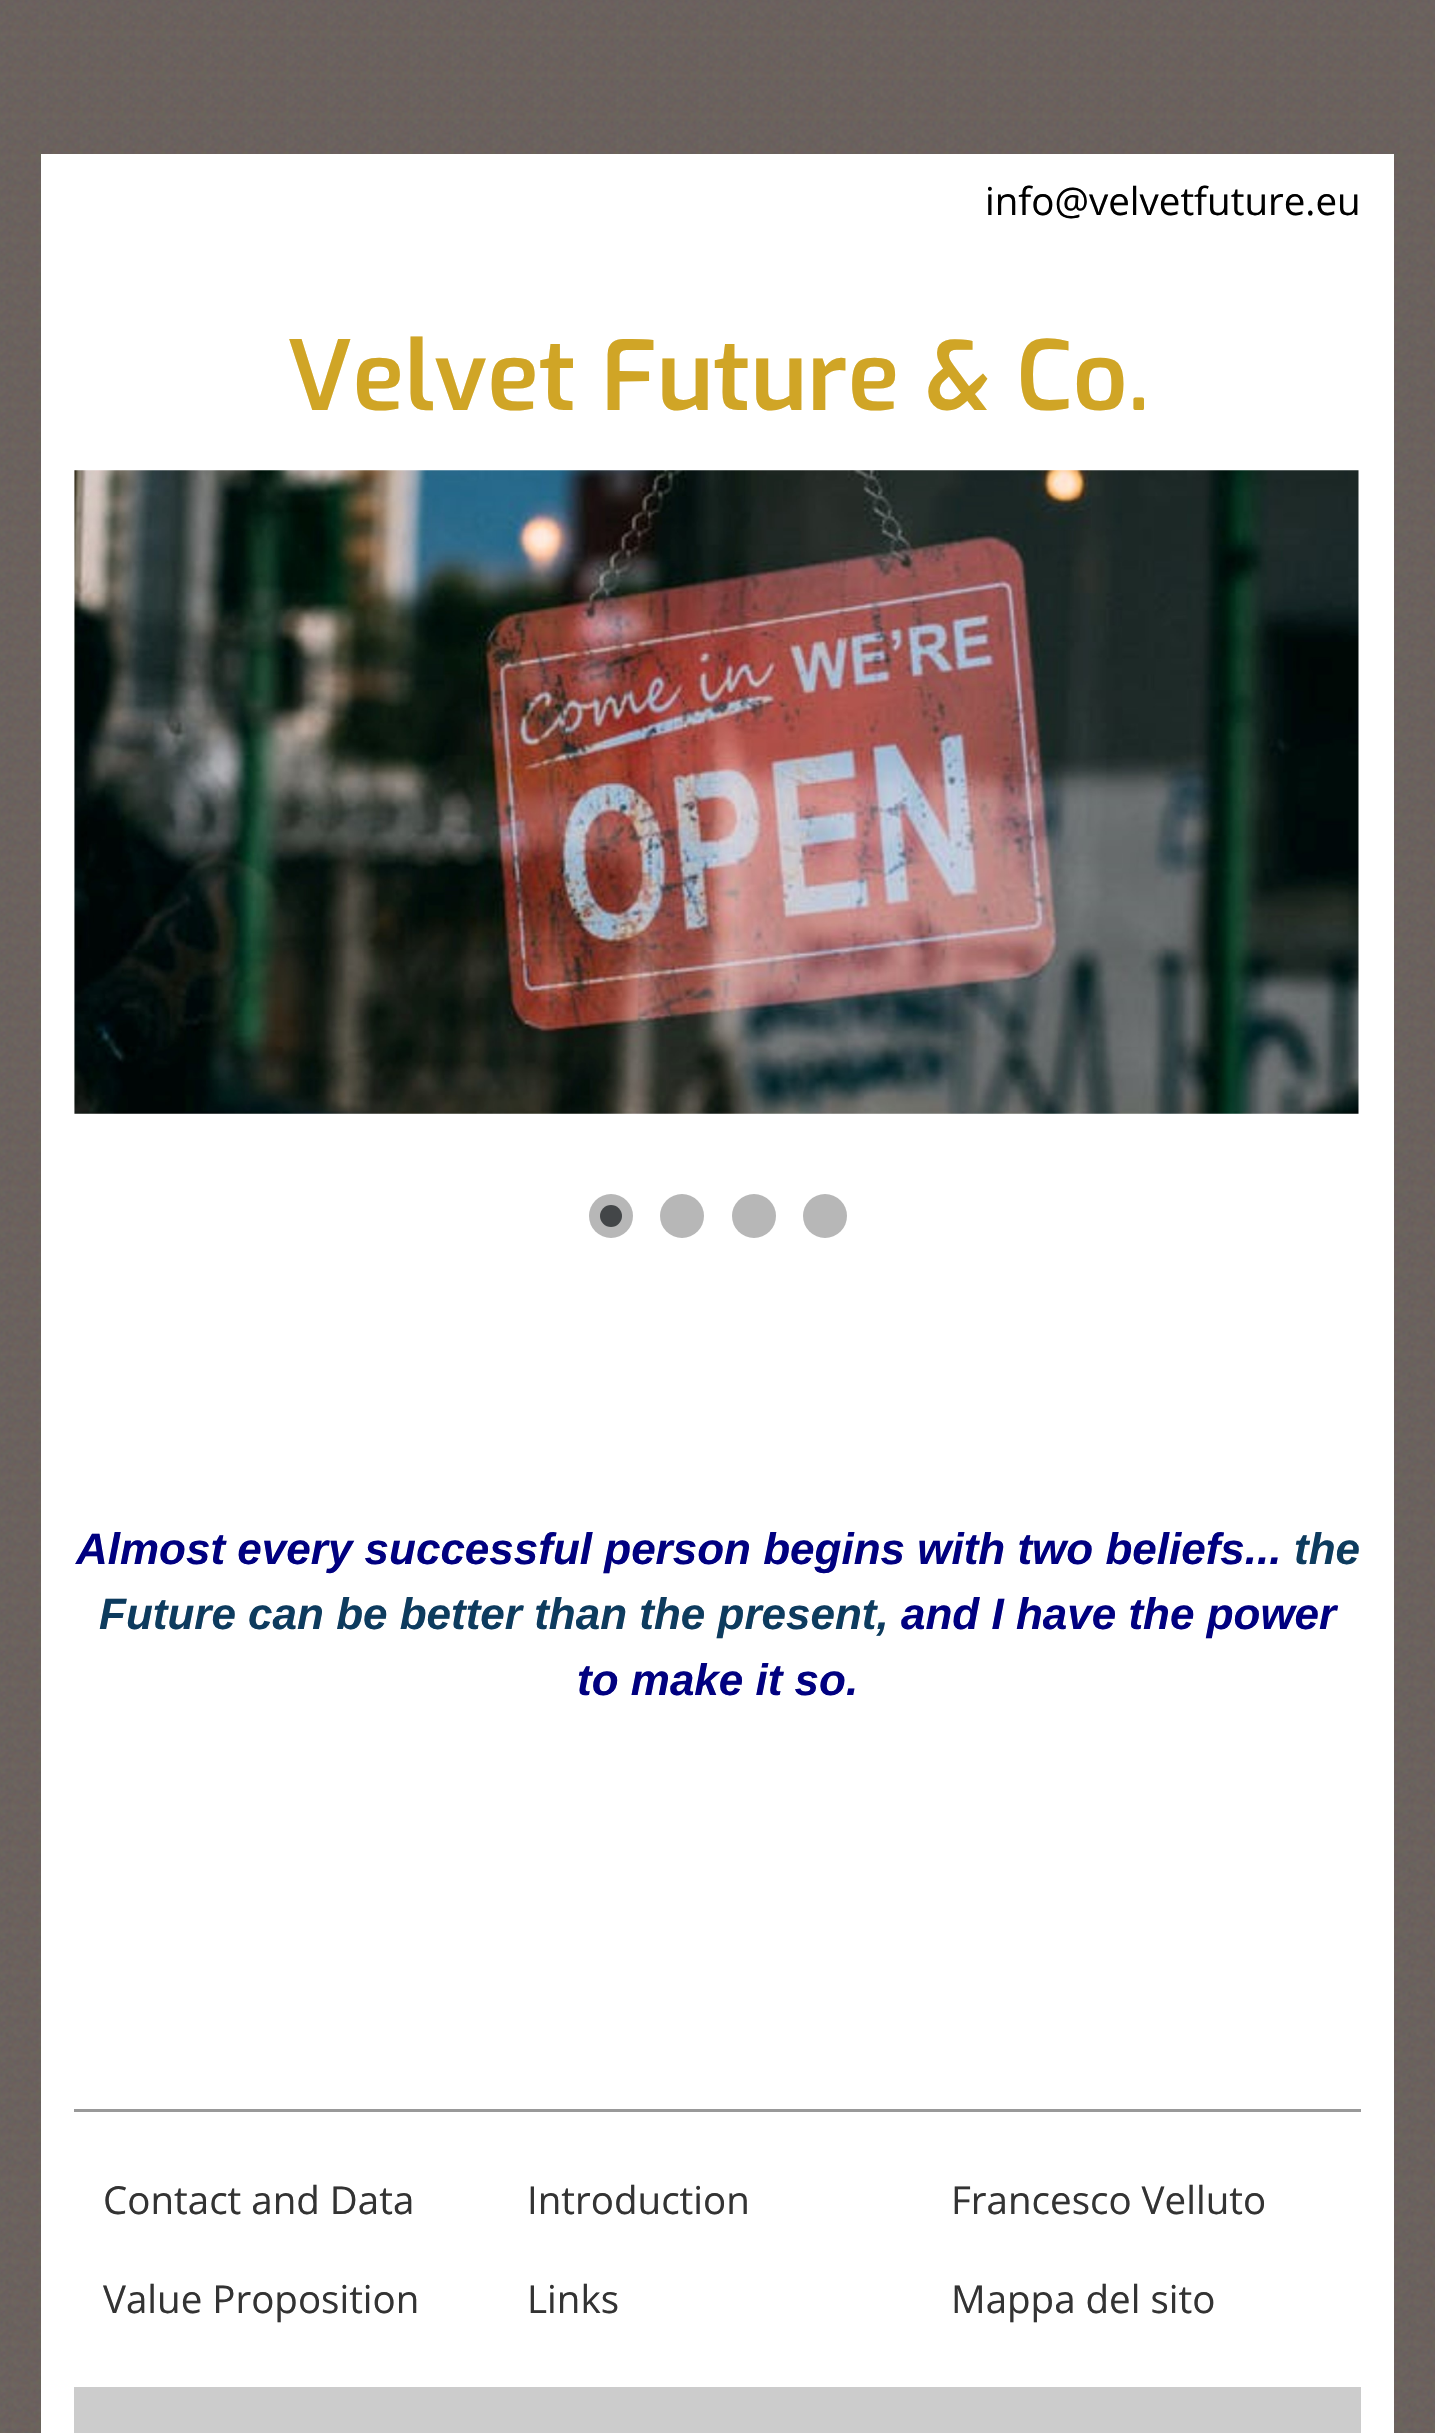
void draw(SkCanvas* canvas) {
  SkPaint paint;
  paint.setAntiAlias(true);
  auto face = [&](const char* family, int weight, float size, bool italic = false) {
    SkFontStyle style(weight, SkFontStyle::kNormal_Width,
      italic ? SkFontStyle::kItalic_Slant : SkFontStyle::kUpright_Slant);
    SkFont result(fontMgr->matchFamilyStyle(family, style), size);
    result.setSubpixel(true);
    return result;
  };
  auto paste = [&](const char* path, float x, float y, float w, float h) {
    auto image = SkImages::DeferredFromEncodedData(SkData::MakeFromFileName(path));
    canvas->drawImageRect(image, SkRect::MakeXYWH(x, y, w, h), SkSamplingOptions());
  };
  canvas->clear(0xffffffff);
  paste("img/1.png", 0, 0, 1435, 2433);
  paint.setColor(0xffffffff);
  canvas->drawRect(SkRect::MakeXYWH(41, 154, 1353, 2279), paint);
  paste("img/2.png", 74, 470, 1285, 644);
  paint.setColor(0xffb7b7b7);
  canvas->drawCircle(611, 1216, 22, paint);
  paint.setColor(0xff434648);
  canvas->drawCircle(611, 1216, 11, paint);
  paint.setColor(0xffb7b7b7);
  canvas->drawCircle(682, 1216, 22, paint);
  canvas->drawCircle(754, 1216, 22, paint);
  canvas->drawCircle(825, 1216, 22, paint);
  paint.setColor(0xff999999);
  canvas->drawRect(SkRect::MakeXYWH(74, 2109, 1287, 3), paint);
  paint.setColor(0xffcccccc);
  canvas->drawRect(SkRect::MakeXYWH(74, 2387, 1287, 46), paint);
  auto f0 = face("Open Sans", 400, 38.5f);
  paint.setColor(0xff000000);
  canvas->drawString("info@velvetfuture.eu", 985, 215, f0, paint);
  auto f1 = face("Exo", 600, 96.25f);
  paint.setColor(0xffd0a526);
  canvas->drawString("Velvet Future & Co.", 287, 410, f1, paint);
  auto f2 = face("Liberation Sans", 700, 44, true);
  paint.setColor(0xff000080);
  canvas->drawString("Almost every successful person begins with two beliefs...", 76, 1564, f2, paint);
  paint.setColor(0xff0d3b5e);
  canvas->drawString("the", 1294, 1564, f2, paint);
  canvas->drawString("Future can be better than the present,", 99, 1629, f2, paint);
  paint.setColor(0xff000080);
  canvas->drawString("and I have the power", 901, 1629, f2, paint);
  canvas->drawString("to make it so.", 577, 1695, f2, paint);
  paint.setColor(0xff333333);
  {
    const struct { const char* s; float x, y; } items[] = {
      {"Contact and Data", 103, 2214},
      {"Introduction", 527, 2214},
      {"Francesco Velluto", 951, 2214},
      {"Value Proposition", 103, 2313},
      {"Links", 527, 2313},
      {"Mappa del sito", 951, 2313},
    };
    for (auto [s, x, y] : items) {
      canvas->drawString(s, x, y, f0, paint);
    }
  }
}
